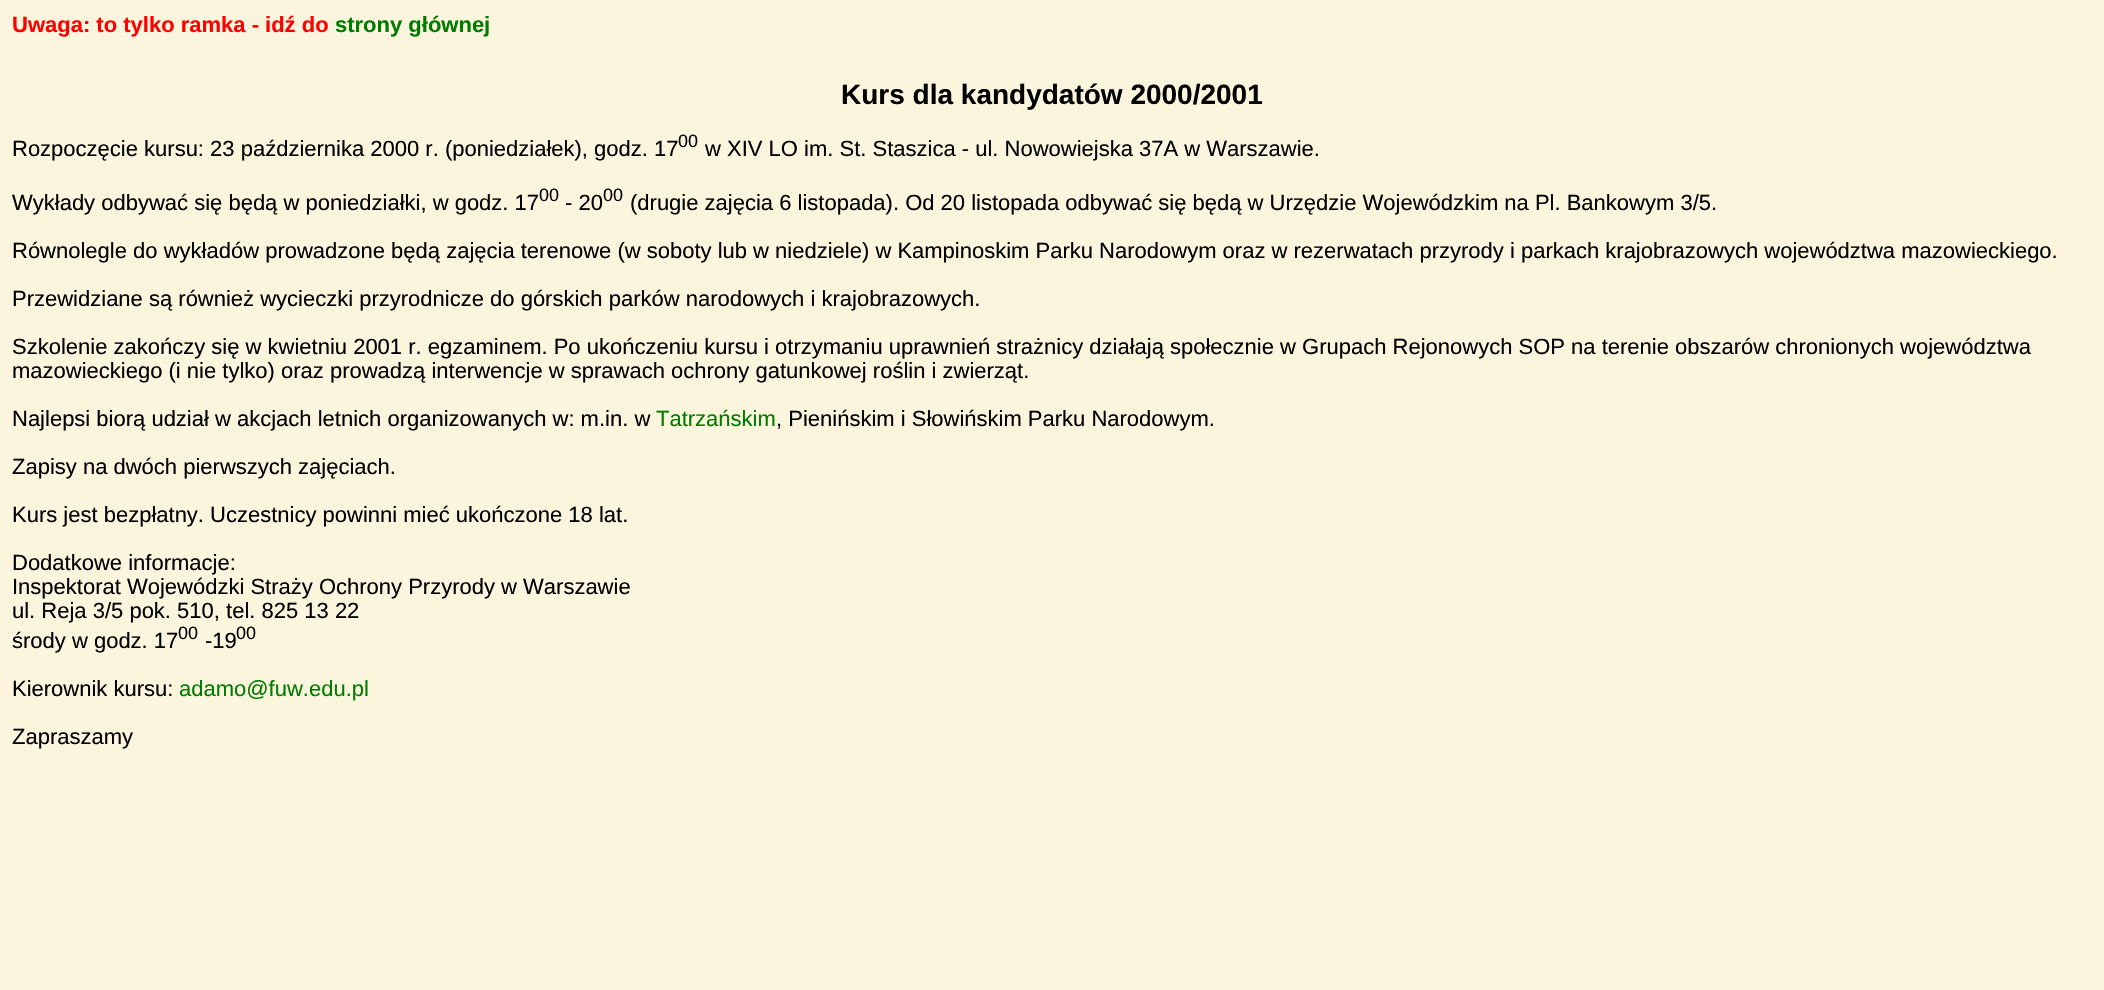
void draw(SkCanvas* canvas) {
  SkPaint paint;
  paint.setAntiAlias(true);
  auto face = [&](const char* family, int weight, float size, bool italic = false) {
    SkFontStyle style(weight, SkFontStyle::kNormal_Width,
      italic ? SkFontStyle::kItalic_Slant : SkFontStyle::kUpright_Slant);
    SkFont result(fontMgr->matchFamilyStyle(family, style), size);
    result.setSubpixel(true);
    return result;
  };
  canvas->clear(0xfffaf5dc);
  auto f0 = face("Liberation Sans", 700, 22);
  paint.setColor(0xffff0000);
  canvas->drawString("Uwaga: to tylko ramka - idź do", 12, 32, f0, paint);
  paint.setColor(0xff007b00);
  canvas->drawString("strony głównej", 335, 32, f0, paint);
  auto f1 = face("Liberation Sans", 700, 28);
  paint.setColor(0xff000000);
  canvas->drawString("Kurs dla kandydatów 2000/2001", 841, 104, f1, paint);
  auto f2 = face("Liberation Sans", 400, 22);
  canvas->drawString("Rozpoczęcie kursu: 23 października 2000 r. (poniedziałek), godz. 17", 12, 156, f2, paint);
  auto f3 = face("Liberation Sans", 400, 18);
  canvas->drawString("00", 678, 147, f3, paint);
  canvas->drawString("w XIV LO im. St. Staszica - ul. Nowowiejska 37A w Warszawie.", 705, 156, f2, paint);
  canvas->drawString("Wykłady odbywać się będą w poniedziałki, w godz. 17", 12, 210, f2, paint);
  canvas->drawString("00", 539, 201, f3, paint);
  canvas->drawString("- 20", 565, 210, f2, paint);
  canvas->drawString("00", 603, 201, f3, paint);
  {
    const struct { const char* s; float x, y; } items[] = {
      {"(drugie zajęcia 6 listopada). Od 20 listopada odbywać się będą w Urzędzie Wojewódzkim na Pl. Bankowym 3/5.", 630, 210},
      {"Równolegle do wykładów prowadzone będą zajęcia terenowe (w soboty lub w niedziele) w Kampinoskim Parku Narodowym oraz w rezerwatach przyrody i parkach krajobrazowych województwa mazowieckiego.", 12, 258},
      {"Przewidziane są również wycieczki przyrodnicze do górskich parków narodowych i krajobrazowych.", 12, 306},
      {"Szkolenie zakończy się w kwietniu 2001 r. egzaminem. Po ukończeniu kursu i otrzymaniu uprawnień strażnicy działają społecznie w Grupach Rejonowych SOP na terenie obszarów chronionych województwa", 12, 354},
      {"mazowieckiego (i nie tylko) oraz prowadzą interwencje w sprawach ochrony gatunkowej roślin i zwierząt.", 12, 378},
      {"Najlepsi biorą udział w akcjach letnich organizowanych w: m.in. w", 12, 426},
    };
    for (auto [s, x, y] : items) {
      canvas->drawString(s, x, y, f2, paint);
    }
  }
  paint.setColor(0xff007b00);
  canvas->drawString("Tatrzańskim", 656, 426, f2, paint);
  paint.setColor(0xff000000);
  {
    const struct { const char* s; float x, y; } items[] = {
      {", Pienińskim i Słowińskim Parku Narodowym.", 776, 426},
      {"Zapisy na dwóch pierwszych zajęciach.", 12, 474},
      {"Kurs jest bezpłatny. Uczestnicy powinni mieć ukończone 18 lat.", 12, 522},
      {"Dodatkowe informacje:", 12, 570},
      {"Inspektorat Wojewódzki Straży Ochrony Przyrody w Warszawie", 12, 594},
      {"ul. Reja 3/5 pok. 510, tel. 825 13 22", 12, 618},
      {"środy w godz. 17", 12, 648},
    };
    for (auto [s, x, y] : items) {
      canvas->drawString(s, x, y, f2, paint);
    }
  }
  canvas->drawString("00", 178, 639, f3, paint);
  canvas->drawString("-19", 205, 648, f2, paint);
  canvas->drawString("00", 236, 639, f3, paint);
  canvas->drawString("Kierownik kursu:", 12, 696, f2, paint);
  paint.setColor(0xff007b00);
  canvas->drawString("adamo@fuw.edu.pl", 179, 696, f2, paint);
  paint.setColor(0xff000000);
  canvas->drawString("Zapraszamy", 12, 744, f2, paint);
}
